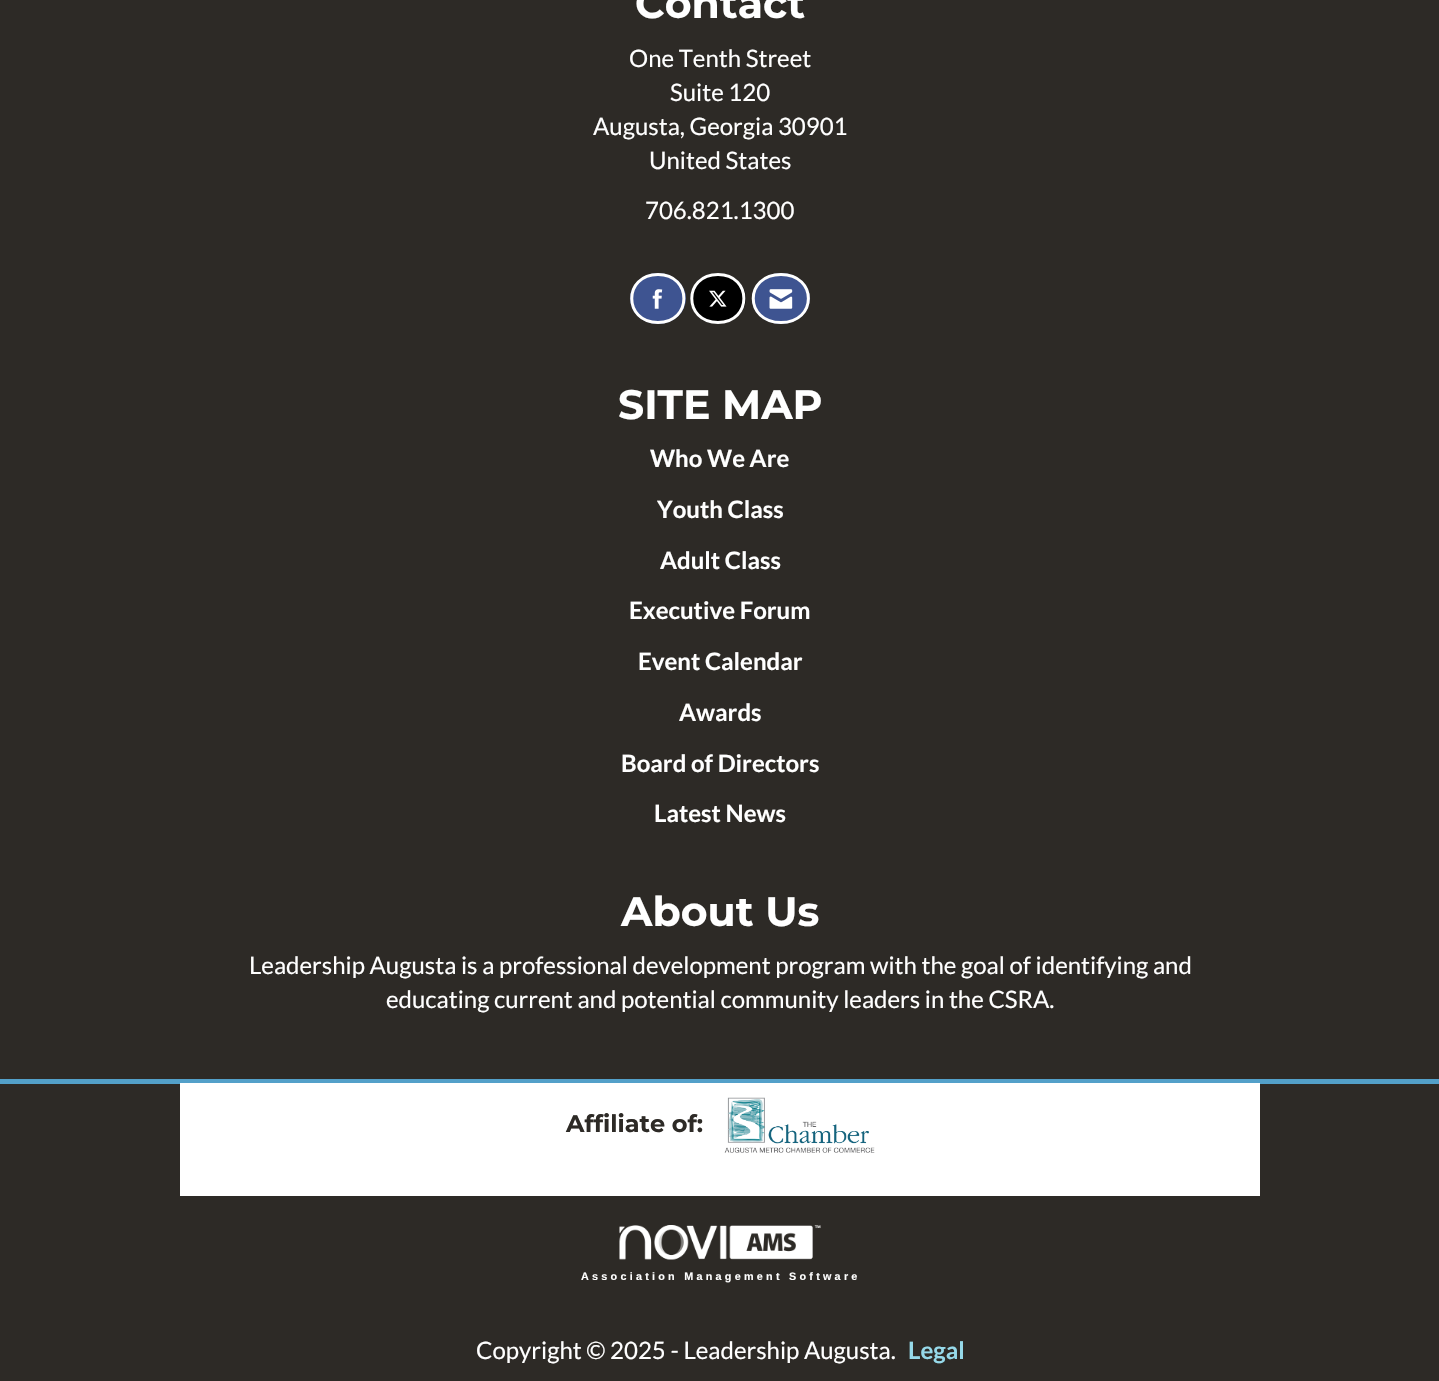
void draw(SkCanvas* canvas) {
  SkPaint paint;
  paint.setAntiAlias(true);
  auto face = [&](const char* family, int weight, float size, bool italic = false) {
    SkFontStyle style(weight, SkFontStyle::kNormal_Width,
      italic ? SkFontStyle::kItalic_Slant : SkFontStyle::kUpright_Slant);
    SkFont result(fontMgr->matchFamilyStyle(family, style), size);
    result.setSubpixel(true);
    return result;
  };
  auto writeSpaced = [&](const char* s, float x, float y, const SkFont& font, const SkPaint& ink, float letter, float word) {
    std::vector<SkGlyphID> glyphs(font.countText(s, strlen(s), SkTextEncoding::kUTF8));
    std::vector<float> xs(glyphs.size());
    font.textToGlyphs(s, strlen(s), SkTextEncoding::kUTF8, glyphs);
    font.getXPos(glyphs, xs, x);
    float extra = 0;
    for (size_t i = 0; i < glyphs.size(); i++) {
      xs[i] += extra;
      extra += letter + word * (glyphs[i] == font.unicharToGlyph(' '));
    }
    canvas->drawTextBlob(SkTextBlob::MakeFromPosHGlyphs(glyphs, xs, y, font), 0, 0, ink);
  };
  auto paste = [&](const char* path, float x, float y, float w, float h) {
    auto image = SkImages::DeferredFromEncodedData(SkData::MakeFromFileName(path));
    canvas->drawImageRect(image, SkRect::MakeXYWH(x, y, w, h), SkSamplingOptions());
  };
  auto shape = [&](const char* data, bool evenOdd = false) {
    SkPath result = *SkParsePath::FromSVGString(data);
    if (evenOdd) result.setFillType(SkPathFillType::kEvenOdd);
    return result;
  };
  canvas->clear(0xff2d2a26);
  paint.setColor(0xff3e5491);
  canvas->drawOval(SkRect::MakeXYWH(630, 273, 56, 51), paint);
  paint.setStroke(true);
  paint.setStrokeWidth(3);
  paint.setColor(0xffffffff);
  canvas->drawPath(shape("M658 274.5C692.5 274.5 692.5 322.5 658 322.5C623 322.5 623 274.5 658 274.5Z"), paint);
  paste("img/1.png", 652, 289, 11, 20);
  paint.setStroke(false);
  paint.setColor(0xff000000);
  canvas->drawOval(SkRect::MakeXYWH(690, 273, 56, 51), paint);
  paint.setStroke(true);
  paint.setColor(0xffffffff);
  canvas->drawPath(shape("M718 274.5C752.5 274.5 752.5 322.5 718 322.5C683 322.5 683 274.5 718 274.5Z"), paint);
  paste("img/2.png", 709, 290, 18, 17);
  paint.setStroke(false);
  paint.setColor(0xff3e5491);
  canvas->drawOval(SkRect::MakeXYWH(752, 273, 58, 51), paint);
  paint.setStroke(true);
  paint.setColor(0xffffffff);
  canvas->drawPath(shape("M781 274.5C817.5 274.5 817.5 322.5 781 322.5C744 322.5 744 274.5 781 274.5Z"), paint);
  paste("img/3.png", 769, 289, 24, 20);
  paint.setStroke(false);
  paint.setColor(0xff53a0c9);
  canvas->drawRect(SkRect::MakeXYWH(0, 1079, 1439, 5), paint);
  paint.setColor(0xffffffff);
  canvas->drawRect(SkRect::MakeXYWH(180, 1083, 1080, 113), paint);
  paste("img/4.png", 724, 1097, 151, 56);
  paste("img/5.png", 619, 1225, 202, 35);
  auto f0 = face("Montserrat", 700, 41);
  canvas->drawString("Contact", 635, 18, f0, paint);
  auto f1 = face("Lato", 400, 24);
  {
    const struct { const char* s; float x, y; } items[] = {
      {"One Tenth Street", 629, 67},
      {"Suite 120", 670, 101},
      {"Augusta, Georgia 30901", 593, 135},
      {"United States", 649, 169},
      {"706.821.1300", 645, 219},
    };
    for (auto [s, x, y] : items) {
      canvas->drawString(s, x, y, f1, paint);
    }
  }
  canvas->drawString("SITE MAP", 618, 419, f0, paint);
  auto f2 = face("Lato", 700, 24);
  {
    const struct { const char* s; float x, y; } items[] = {
      {"Who We Are", 650, 467},
      {"Youth Class", 657, 518},
      {"Adult Class", 660, 569},
      {"Executive Forum", 629, 619},
      {"Event Calendar", 638, 670},
      {"Awards", 679, 721},
      {"Board of Directors", 621, 772},
      {"Latest News", 654, 822},
    };
    for (auto [s, x, y] : items) {
      canvas->drawString(s, x, y, f2, paint);
    }
  }
  canvas->drawString("About Us", 621, 926, f0, paint);
  canvas->drawString("Leadership Augusta is a professional development program with the goal of identifying and", 249, 974, f1, paint);
  canvas->drawString("educating current and potential community leaders in the CSRA.", 386, 1008, f1, paint);
  auto f3 = face("Montserrat", 700, 24);
  paint.setColor(0xff2d2a26);
  canvas->drawString("Affiliate of:", 566, 1132, f3, paint);
  auto f4 = face("Liberation Sans", 700, 10.8f);
  paint.setColor(0xffffffff);
  writeSpaced("Association Management Software", 581, 1280, f4, paint, 3.25f, 0);
  canvas->drawString("Copyright © 2025 - Leadership Augusta.", 476, 1359, f1, paint);
  paint.setColor(0xff96d9e9);
  canvas->drawString("Legal", 908, 1359, f2, paint);
}
